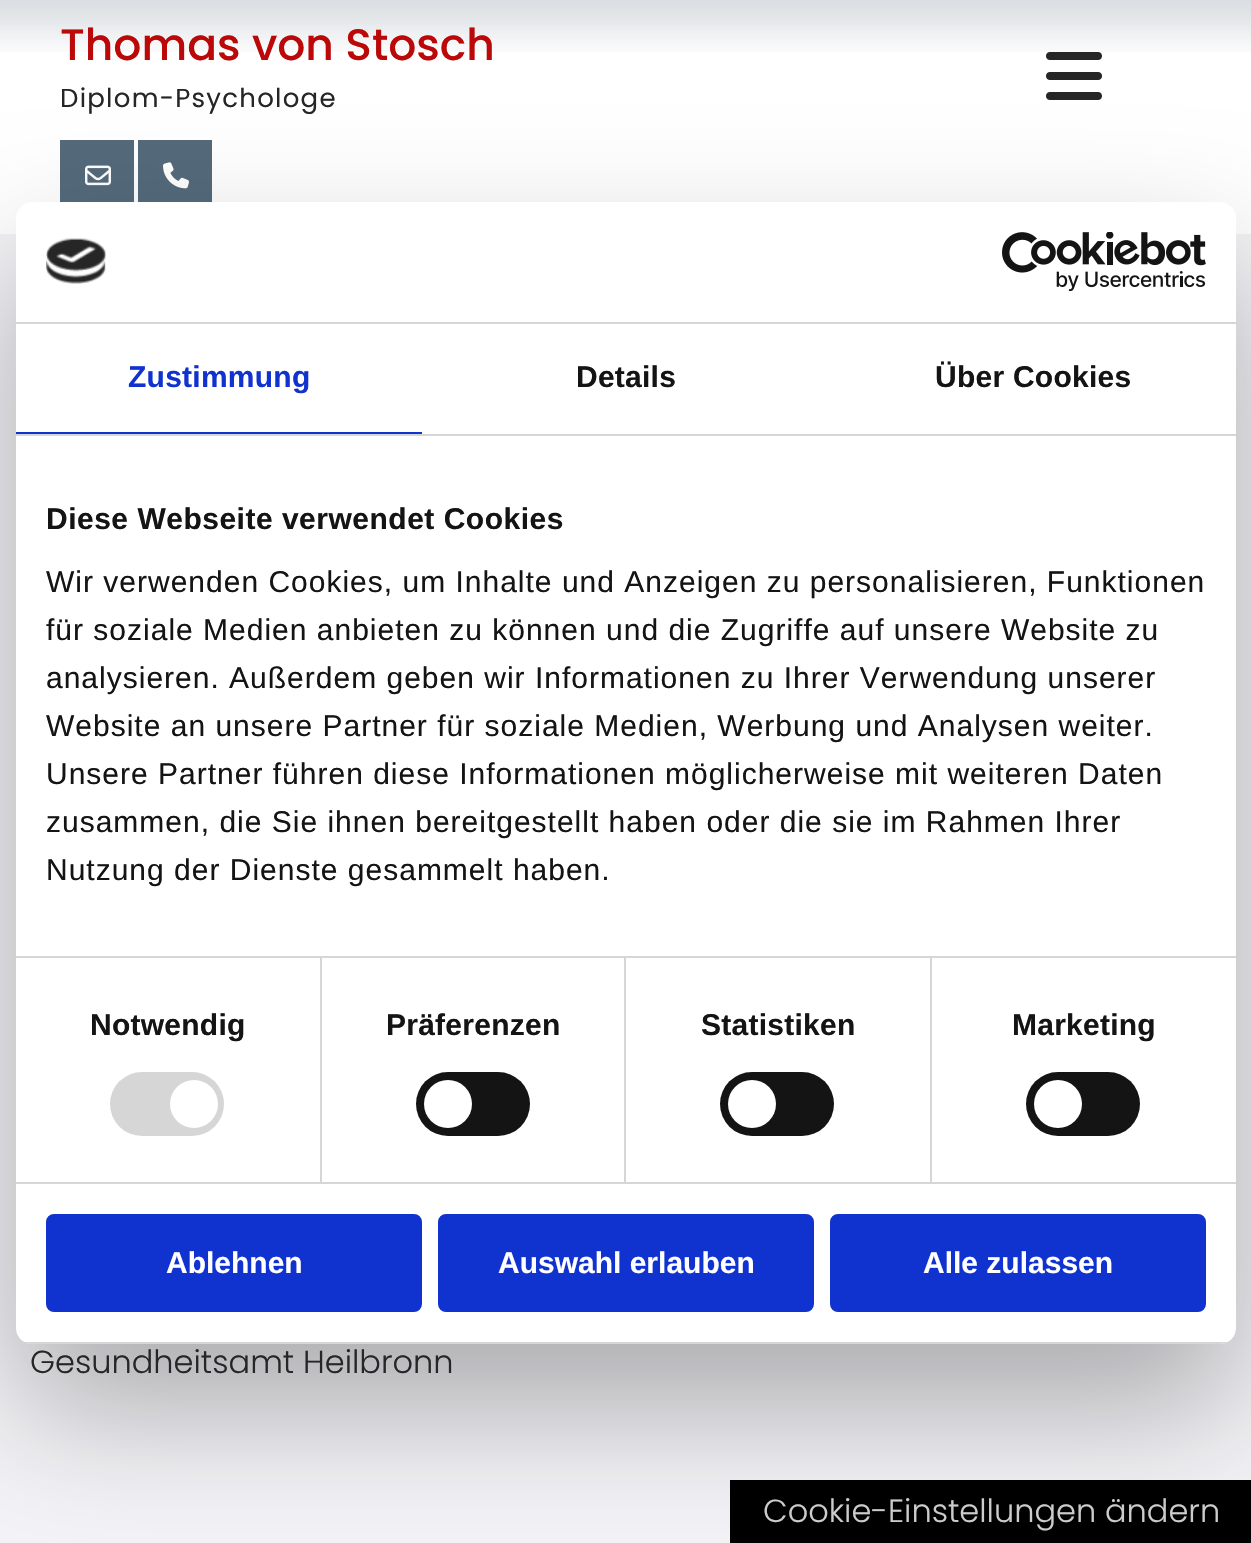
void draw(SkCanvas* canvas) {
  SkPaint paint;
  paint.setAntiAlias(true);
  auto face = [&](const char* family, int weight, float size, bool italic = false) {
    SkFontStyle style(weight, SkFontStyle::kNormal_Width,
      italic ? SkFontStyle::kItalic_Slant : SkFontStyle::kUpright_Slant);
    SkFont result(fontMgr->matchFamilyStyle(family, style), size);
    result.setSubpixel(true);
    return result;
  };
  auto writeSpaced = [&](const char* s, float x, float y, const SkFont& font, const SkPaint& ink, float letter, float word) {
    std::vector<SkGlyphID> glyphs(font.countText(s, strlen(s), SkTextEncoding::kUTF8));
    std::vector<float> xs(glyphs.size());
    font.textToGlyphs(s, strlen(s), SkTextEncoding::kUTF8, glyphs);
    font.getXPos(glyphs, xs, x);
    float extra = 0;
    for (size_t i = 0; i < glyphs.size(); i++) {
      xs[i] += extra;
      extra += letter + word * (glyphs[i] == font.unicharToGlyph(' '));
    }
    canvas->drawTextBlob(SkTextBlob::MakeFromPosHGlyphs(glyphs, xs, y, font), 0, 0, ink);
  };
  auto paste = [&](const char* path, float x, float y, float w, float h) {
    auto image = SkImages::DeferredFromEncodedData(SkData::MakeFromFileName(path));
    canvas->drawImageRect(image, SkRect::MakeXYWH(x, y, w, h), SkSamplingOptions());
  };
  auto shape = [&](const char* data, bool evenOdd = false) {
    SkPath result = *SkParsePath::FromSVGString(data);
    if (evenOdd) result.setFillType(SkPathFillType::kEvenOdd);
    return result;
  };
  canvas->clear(0xffffffff);
  paste("img/1.png", 0, 0, 1251, 52);
  paste("img/2.png", 1046, 52, 56, 48);
  paint.setColor(0xff546a7b);
  canvas->drawRect(SkRect::MakeXYWH(60, 140, 74, 62), paint);
  paste("img/3.png", 85, 165, 26, 21);
  canvas->drawRect(SkRect::MakeXYWH(138, 140, 74, 62), paint);
  paste("img/4.png", 163, 162, 26, 27);
  paint.setColor(0xfff4f4f8);
  canvas->drawRect(SkRect::MakeXYWH(0, 234, 1251, 1309), paint);
  paint.setColor(0xff000000);
  canvas->drawRect(SkRect::MakeXYWH(730, 1480, 521, 63), paint);
  paint.setColor(0x4d000000);
  paint.setMaskFilter(SkMaskFilter::MakeBlur(kNormal_SkBlurStyle, 68));
  canvas->drawRoundRect(SkRect::MakeXYWH(16, 266, 1220, 1142), 16, 16, paint);
  paint.setMaskFilter(nullptr);
  paint.setColor(0xffffffff);
  canvas->drawRoundRect(SkRect::MakeXYWH(16, 202, 1220, 1142), 16, 16, paint);
  paint.setColor(0xffd6d6d6);
  canvas->drawRect(SkRect::MakeXYWH(16, 322, 1220, 2), paint);
  paste("img/5.png", 46, 238, 60, 46);
  paste("img/6.png", 1002, 232, 204, 60);
  {
    const struct { float x, y, w, h; SkColor color; } items[] = {
      {16, 434, 1220, 2, 0xffd6d6d6},
      {16, 432, 406, 2, 0xff1032cf},
      {16, 956, 1220, 2, 0xffd6d6d6},
      {16, 1182, 1220, 2, 0xffd6d6d6},
      {320, 958, 2, 224, 0xffd6d6d6},
    };
    for (auto [x, y, w, h, color] : items) {
      paint.setColor(color);
      canvas->drawRect(SkRect::MakeXYWH(x, y, w, h), paint);
    }
  }
  canvas->drawRoundRect(SkRect::MakeXYWH(110, 1072, 114, 64), 32, 32, paint);
  paint.setColor(0xffffffff);
  canvas->drawCircle(194, 1104, 24, paint);
  paint.setColor(0xffd6d6d6);
  canvas->drawRect(SkRect::MakeXYWH(624, 958, 2, 224), paint);
  paint.setColor(0xff141414);
  canvas->drawRoundRect(SkRect::MakeXYWH(416, 1072, 114, 64), 32, 32, paint);
  paint.setColor(0xffffffff);
  canvas->drawCircle(448, 1104, 24, paint);
  paint.setColor(0xffd6d6d6);
  canvas->drawRect(SkRect::MakeXYWH(930, 958, 2, 224), paint);
  paint.setColor(0xff141414);
  canvas->drawRoundRect(SkRect::MakeXYWH(720, 1072, 114, 64), 32, 32, paint);
  paint.setColor(0xffffffff);
  canvas->drawCircle(752, 1104, 24, paint);
  paint.setColor(0xff141414);
  canvas->drawRoundRect(SkRect::MakeXYWH(1026, 1072, 114, 64), 32, 32, paint);
  paint.setColor(0xffffffff);
  canvas->drawCircle(1058, 1104, 24, paint);
  canvas->save();
  canvas->clipPath(shape("M32 202H1220C1229 202 1236 209 1236 218V1328C1236 1337 1229 1344 1220 1344H32C23 1344 16 1337 16 1328V218C16 209 23 202 32 202Z"), true);
  paint.setColor(0xffd6d6d6);
  canvas->drawRect(SkRect::MakeXYWH(16, 1342, 1220, 2), paint);
  canvas->restore();
  paint.setColor(0xff1032cf);
  canvas->drawRoundRect(SkRect::MakeXYWH(48, 1216, 372, 94), 6, 6, paint);
  paint.setStroke(true);
  paint.setStrokeWidth(4);
  canvas->drawRoundRect(SkRect::MakeXYWH(48, 1216, 372, 94), 6, 6, paint);
  paint.setStroke(false);
  canvas->drawRoundRect(SkRect::MakeXYWH(440, 1216, 372, 94), 6, 6, paint);
  paint.setStroke(true);
  canvas->drawRoundRect(SkRect::MakeXYWH(440, 1216, 372, 94), 6, 6, paint);
  paint.setStroke(false);
  canvas->drawRoundRect(SkRect::MakeXYWH(832, 1216, 372, 94), 6, 6, paint);
  paint.setStroke(true);
  canvas->drawRoundRect(SkRect::MakeXYWH(832, 1216, 372, 94), 6, 6, paint);
  auto f0 = face("Poppins", 500, 44);
  paint.setStroke(false);
  paint.setColor(0xffba0908);
  canvas->drawString("Thomas von Stosch", 60, 60, f0, paint);
  auto f1 = face("Poppins", 400, 26);
  paint.setColor(0xff262626);
  writeSpaced("Diplom-Psychologe", 60, 107, f1, paint, 1.25f, 0);
  auto f2 = face("Poppins", 300, 32);
  canvas->drawString("Gesundheitsamt Heilbronn", 30, 1373, f2, paint);
  paint.setColor(0xffcccccc);
  canvas->drawString("Cookie-Einstellungen ändern", 763, 1522, f2, paint);
  auto f3 = face("Liberation Sans", 700, 30);
  paint.setColor(0xff1032cf);
  writeSpaced("Zustimmung", 128, 387, f3, paint, 0.25f, 0);
  paint.setColor(0xff141414);
  writeSpaced("Details", 576, 387, f3, paint, 0.25f, 0);
  writeSpaced("Über Cookies", 935, 387, f3, paint, 0.25f, 0);
  writeSpaced("Diese Webseite verwendet Cookies", 46, 529, f3, paint, 0.5f, 0);
  auto f4 = face("Liberation Sans", 400, 30);
  {
    const struct { const char* s; float x, y; } items[] = {
      {"Wir verwenden Cookies, um Inhalte und Anzeigen zu personalisieren, Funktionen", 46, 592},
      {"für soziale Medien anbieten zu können und die Zugriffe auf unsere Website zu", 46, 640},
      {"analysieren. Außerdem geben wir Informationen zu Ihrer Verwendung unserer", 46, 688},
      {"Website an unsere Partner für soziale Medien, Werbung und Analysen weiter.", 46, 736},
      {"Unsere Partner führen diese Informationen möglicherweise mit weiteren Daten", 46, 784},
      {"zusammen, die Sie ihnen bereitgestellt haben oder die sie im Rahmen Ihrer", 46, 832},
      {"Nutzung der Dienste gesammelt haben.", 46, 880},
    };
    for (auto [s, x, y] : items) {
      writeSpaced(s, x, y, f4, paint, 1, 0);
    }
  }
  {
    const struct { const char* s; float x, y; } items[] = {
      {"Notwendig", 90, 1035},
      {"Präferenzen", 386, 1035},
      {"Statistiken", 701, 1035},
      {"Marketing", 1012, 1035},
    };
    for (auto [s, x, y] : items) {
      writeSpaced(s, x, y, f3, paint, 0.25f, 0);
    }
  }
  paint.setColor(0xffffffff);
  {
    const struct { const char* s; float x, y; } items[] = {
      {"Ablehnen", 166, 1273},
      {"Auswahl erlauben", 498, 1273},
      {"Alle zulassen", 923, 1273},
    };
    for (auto [s, x, y] : items) {
      canvas->drawString(s, x, y, f3, paint);
    }
  }
}
